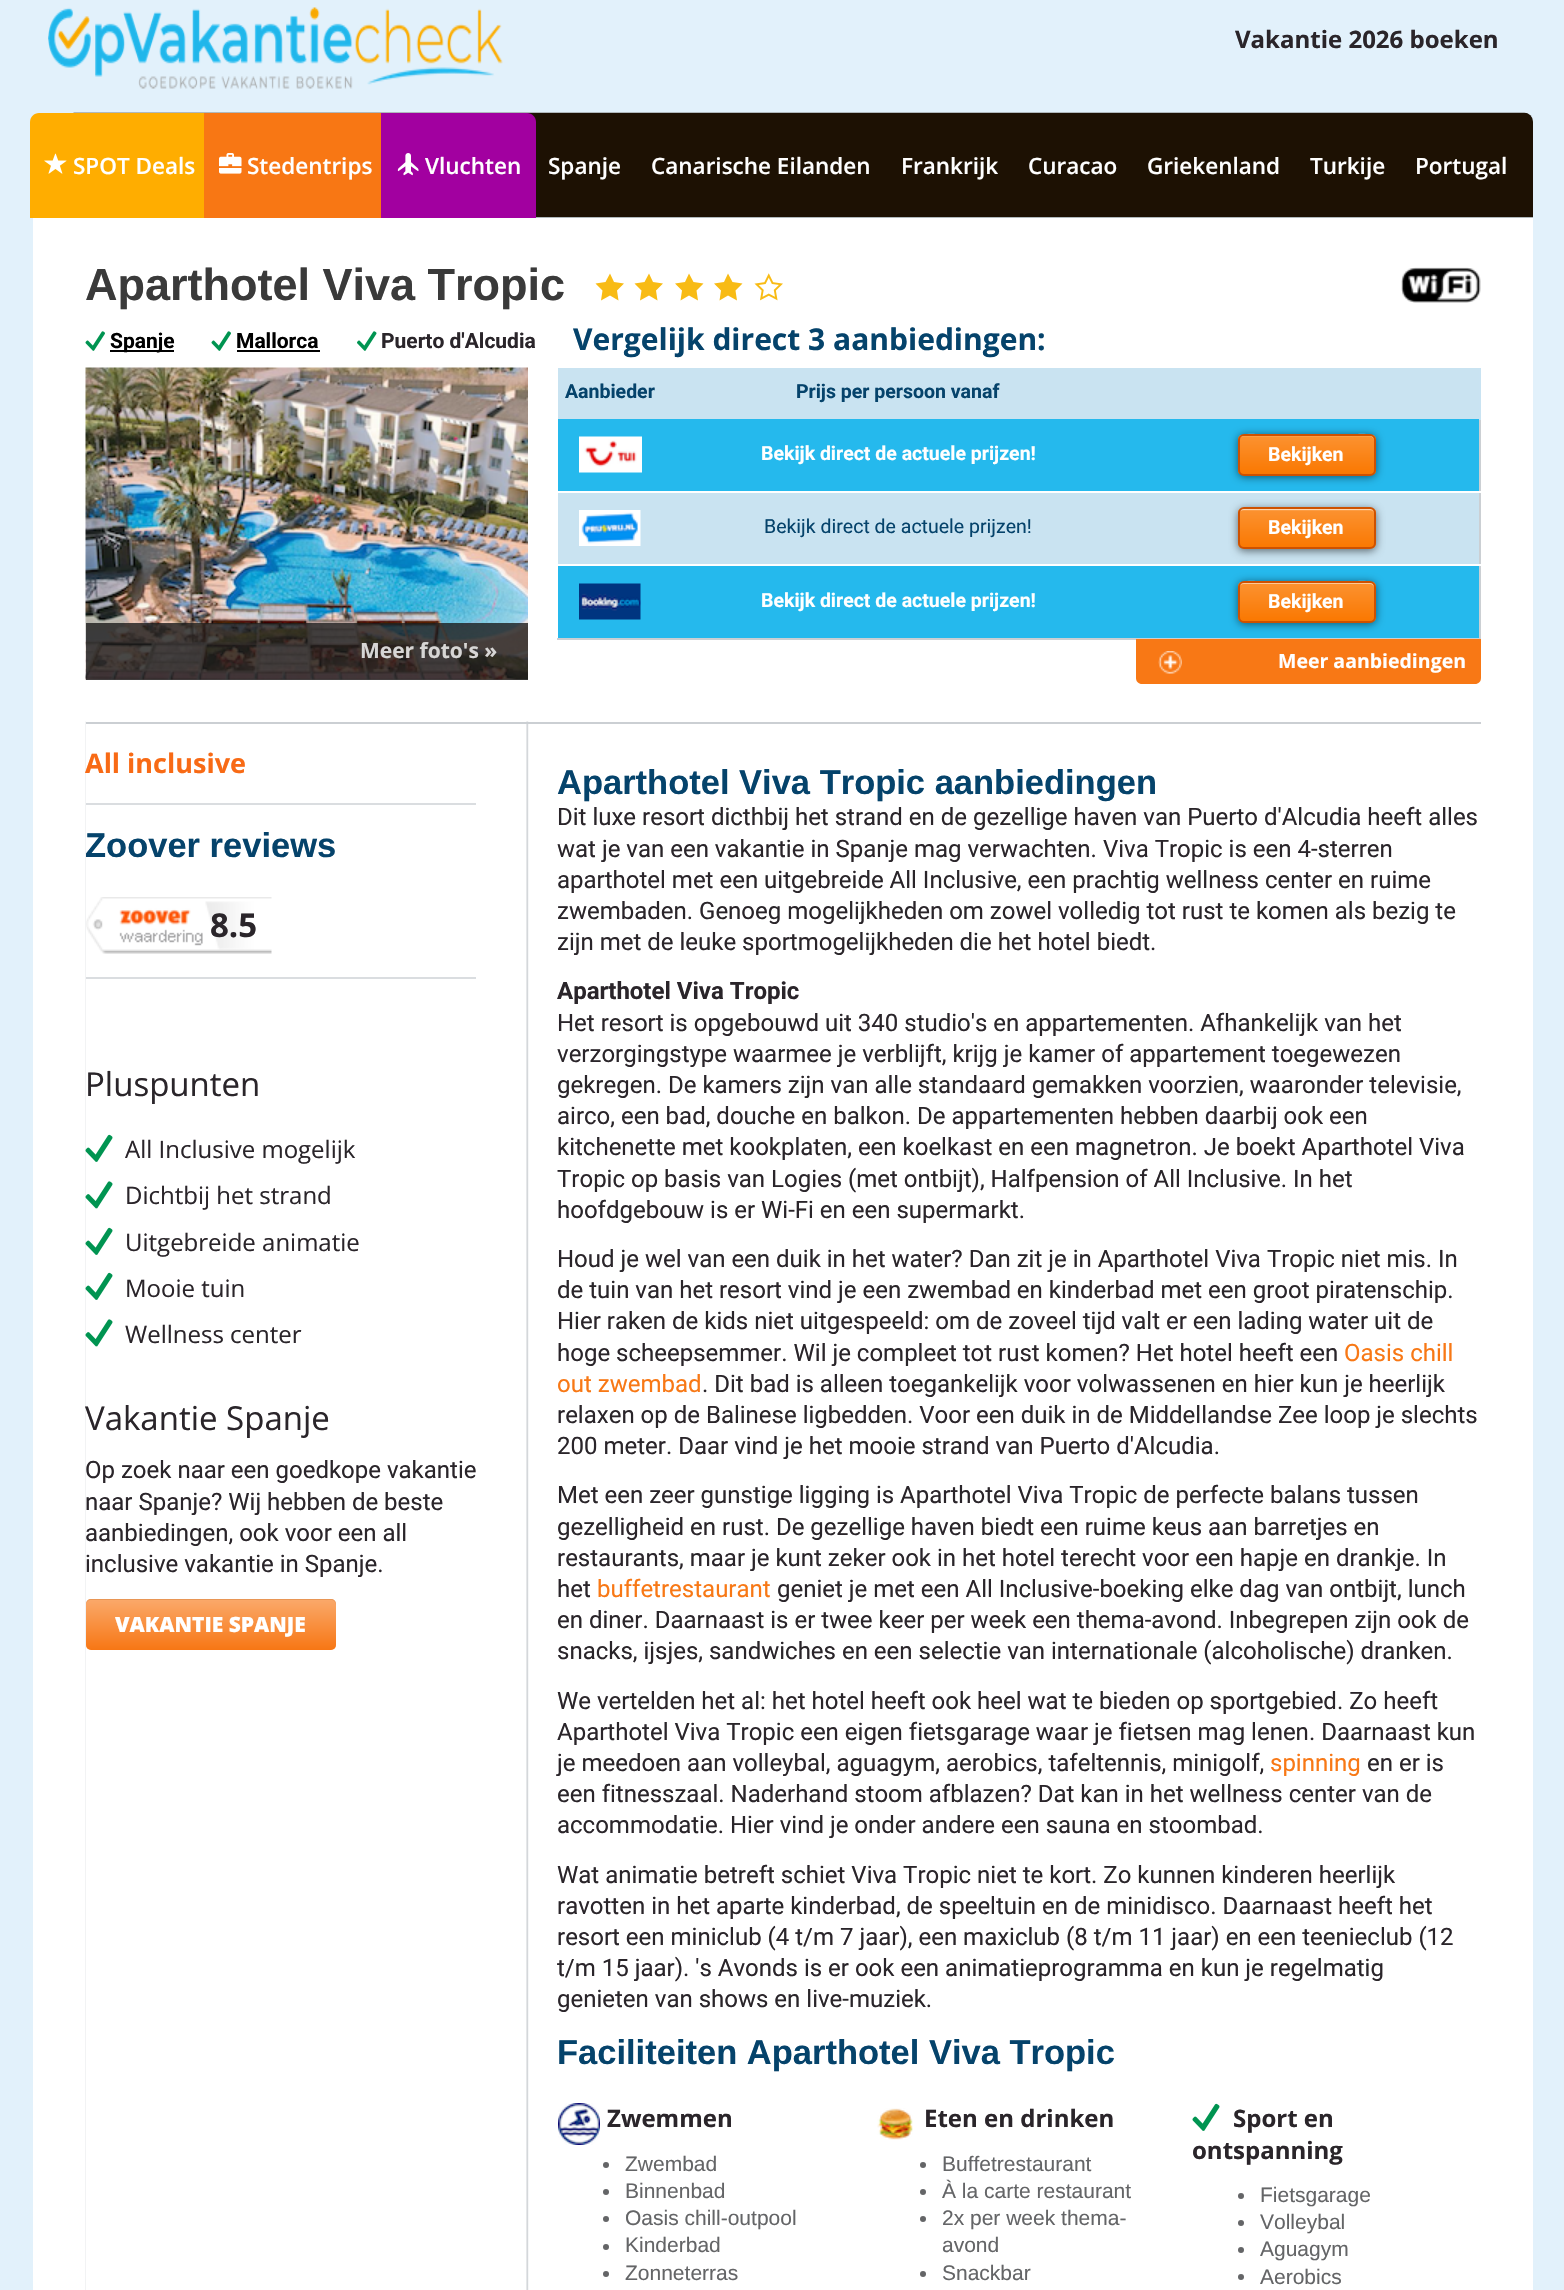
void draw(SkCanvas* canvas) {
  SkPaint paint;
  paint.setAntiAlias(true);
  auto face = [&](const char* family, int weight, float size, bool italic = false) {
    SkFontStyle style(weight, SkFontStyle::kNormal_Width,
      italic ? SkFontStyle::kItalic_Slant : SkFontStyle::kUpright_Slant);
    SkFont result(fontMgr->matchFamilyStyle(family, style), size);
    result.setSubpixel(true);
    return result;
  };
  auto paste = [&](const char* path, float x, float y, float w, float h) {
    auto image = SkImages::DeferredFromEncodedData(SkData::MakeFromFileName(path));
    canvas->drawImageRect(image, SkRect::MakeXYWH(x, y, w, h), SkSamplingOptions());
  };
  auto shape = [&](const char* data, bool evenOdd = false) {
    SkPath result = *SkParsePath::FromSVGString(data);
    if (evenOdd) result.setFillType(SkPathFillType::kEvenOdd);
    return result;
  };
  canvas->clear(0xffe2f1fb);
  paste("img/1.png", 48, 7, 455, 82);
  paste("img/2.png", 73, 112, 1460, 106);
  paint.setColor(0xffffad00);
  canvas->drawPath(shape("M39 113H210V218H30V122C30 117 34 113 39 113Z"), paint);
  paste("img/3.png", 44, 153, 23, 21);
  paint.setColor(0xfff87714);
  canvas->drawRect(SkRect::MakeXYWH(204, 113, 177, 105), paint);
  paste("img/4.png", 219, 153, 23, 21);
  paint.setColor(0xffa200a0);
  canvas->drawPath(shape("M381 113H527C532 113 536 117 536 122V218H381Z"), paint);
  paste("img/5.png", 397, 153, 22, 23);
  paint.setColor(0xffffffff);
  canvas->drawRect(SkRect::MakeXYWH(33, 218, 1500, 2072), paint);
  paint.setColor(0xfff8bb15);
  canvas->drawPath(shape("M624 283.5L617 290.5L618.5 300.5L610 295.5L601 300.5L602.5 290.5L595.5 283.5L605.5 282L610 273.5L614 282Z"), paint);
  canvas->drawPath(shape("M663 283.5L656 290.5L657.5 300.5L649 295.5L640 300.5L641.5 290.5L634.5 283.5L644.5 282L649 273.5L653 282Z"), paint);
  canvas->drawPath(shape("M703.5 283.5L696.5 290.5L698 300.5L689 295.5L680.5 300.5L682 290.5L675 283.5L685 282L689 273.5L693.5 282Z"), paint);
  canvas->drawPath(shape("M742.5 283.5L735.5 290.5L737 300.5L728 295.5L719.5 300.5L721 290.5L714 283.5L724 282L728 273.5L732.5 282Z"), paint);
  paste("img/6.png", 754, 273, 29, 28);
  paste("img/7.png", 1401, 267, 80, 36);
  paste("img/8.png", 85, 331, 20, 20);
  paint.setColor(0xff000000);
  canvas->drawRect(SkRect::MakeXYWH(110, 350, 64, 2), paint);
  paste("img/8.png", 211, 331, 20, 20);
  canvas->drawRect(SkRect::MakeXYWH(237, 350, 83, 2), paint);
  paste("img/9.png", 357, 331, 20, 20);
  paste("img/10.png", 85, 367, 443, 313);
  {
    const struct { float x, y, w, h; SkColor color; } items[] = {
      {86, 623, 442, 57, 0xcc1b1b1b},
      {558, 368, 921, 51, 0xffc9e3f1},
      {1479, 419, 2, 220, 0xffcbcfd3},
      {1479, 368, 2, 52, 0xffc9e3f2},
      {558, 419, 921, 72, 0xff25b9ed},
    };
    for (auto [x, y, w, h, color] : items) {
      paint.setColor(color);
      canvas->drawRect(SkRect::MakeXYWH(x, y, w, h), paint);
    }
  }
  paste("img/11.png", 579, 436, 63, 37);
  paint.setColor(0xffffffff);
  canvas->drawRect(SkRect::MakeXYWH(1479, 491, 2, 2), paint);
  paint.setColor(0x8a000000);
  paint.setMaskFilter(SkMaskFilter::MakeBlur(kNormal_SkBlurStyle, 4));
  canvas->drawRoundRect(SkRect::MakeXYWH(1238, 435, 138, 42), 6, 6, paint);
  paint.setMaskFilter(nullptr);
  canvas->save();
  canvas->clipPath(shape("M1244 434H1370C1373.5 434 1376 436.5 1376 440V470C1376 473.5 1373.5 476 1370 476H1244C1240.5 476 1238 473.5 1238 470V440C1238 436.5 1240.5 434 1244 434Z"), true);
  {
    const SkColor colors[] = {0xfffdc38d, 0xfffb912f, 0xfffa7801};
    const float stops[] = {0, 0.05f, 1};
    const SkPoint ends[] = {{1307, 435}, {1307, 474}};
    paint.setShader(SkGradientShader::MakeLinear(ends, colors, stops, 3, SkTileMode::kClamp));
    paint.setAlpha(255);
  }
  canvas->drawRect(SkRect::MakeXYWH(1238, 435, 138, 39), paint);
  canvas->restore();
  paint.setShader(nullptr);
  paint.setColor(0x73ffffff);
  canvas->drawPath(shape("M1244 436H1370C1372 436 1374 439 1374 441C1374 430 1352 435 1348 435H1265C1261 435 1239 430 1239 441C1239 439 1241 436 1244 436Z"), paint);
  paint.setStroke(true);
  paint.setStrokeWidth(2);
  paint.setColor(0xffce5100);
  canvas->drawRoundRect(SkRect::MakeXYWH(1239, 435, 136, 40), 5, 5, paint);
  paint.setStroke(false);
  paint.setColor(0xffc9e3f1);
  canvas->drawRect(SkRect::MakeXYWH(558, 493, 921, 71), paint);
  paste("img/12.png", 579, 510, 62, 36);
  paint.setColor(0xffffffff);
  canvas->drawRect(SkRect::MakeXYWH(1479, 564, 2, 2), paint);
  paint.setColor(0x8a000000);
  paint.setMaskFilter(SkMaskFilter::MakeBlur(kNormal_SkBlurStyle, 4));
  canvas->drawRoundRect(SkRect::MakeXYWH(1238, 509, 138, 42), 6, 6, paint);
  paint.setMaskFilter(nullptr);
  canvas->save();
  canvas->clipPath(shape("M1244 507H1370C1373.5 507 1376 509.5 1376 513V543C1376 546.5 1373.5 549 1370 549H1244C1240.5 549 1238 546.5 1238 543V513C1238 509.5 1240.5 507 1244 507Z"), true);
  {
    const SkColor colors[] = {0xfffdc38d, 0xfffb912f, 0xfffa7801};
    const float stops[] = {0, 0.05f, 1};
    const SkPoint ends[] = {{1307, 509}, {1307, 548}};
    paint.setShader(SkGradientShader::MakeLinear(ends, colors, stops, 3, SkTileMode::kClamp));
    paint.setAlpha(255);
  }
  canvas->drawRect(SkRect::MakeXYWH(1238, 509, 138, 39), paint);
  canvas->restore();
  paint.setShader(nullptr);
  paint.setColor(0x73ffffff);
  canvas->drawPath(shape("M1244 510H1370C1372 510 1374 512 1374 514C1374 511 1372 509 1369 509H1244C1241 509 1239 511 1239 514C1239 512 1241 510 1244 510Z"), paint);
  paint.setStroke(true);
  paint.setColor(0xffce5100);
  canvas->drawRoundRect(SkRect::MakeXYWH(1239, 508, 136, 40), 5, 5, paint);
  paint.setStroke(false);
  paint.setColor(0xff25b9ed);
  canvas->drawRect(SkRect::MakeXYWH(558, 566, 921, 72), paint);
  paste("img/13.png", 579, 583, 62, 37);
  paint.setColor(0xffcbcfd3);
  canvas->drawRect(SkRect::MakeXYWH(1134, 638, 347, 1), paint);
  canvas->drawRect(SkRect::MakeXYWH(557, 638, 579, 2), paint);
  paint.setColor(0x8a000000);
  paint.setMaskFilter(SkMaskFilter::MakeBlur(kNormal_SkBlurStyle, 4));
  canvas->drawRoundRect(SkRect::MakeXYWH(1238, 582, 138, 42), 6, 6, paint);
  paint.setMaskFilter(nullptr);
  canvas->save();
  canvas->clipPath(shape("M1244 581H1370C1373.5 581 1376 583.5 1376 587V617C1376 620.5 1373.5 623 1370 623H1244C1240.5 623 1238 620.5 1238 617V587C1238 583.5 1240.5 581 1244 581Z"), true);
  {
    const SkColor colors[] = {0xfffdc38d, 0xfffb912f, 0xfffa7801};
    const float stops[] = {0, 0.05f, 1};
    const SkPoint ends[] = {{1307, 582}, {1307, 621}};
    paint.setShader(SkGradientShader::MakeLinear(ends, colors, stops, 3, SkTileMode::kClamp));
    paint.setAlpha(255);
  }
  canvas->drawRect(SkRect::MakeXYWH(1238, 582, 138, 39), paint);
  canvas->restore();
  paint.setShader(nullptr);
  paint.setColor(0x73ffffff);
  canvas->drawPath(shape("M1244 584H1370C1372 584 1374 586 1374 588C1374 577 1352 582 1348 582H1265C1261 582 1239 577 1239 588C1239 586 1241 584 1244 584Z"), paint);
  paint.setStroke(true);
  paint.setColor(0xffce5100);
  canvas->drawRoundRect(SkRect::MakeXYWH(1239, 582, 136, 40), 5, 5, paint);
  paint.setStroke(false);
  paint.setColor(0xfff87815);
  canvas->drawPath(shape("M1136 639H1481V678C1481 681.5 1478.5 684 1475 684H1142C1138.5 684 1136 681.5 1136 678Z"), paint);
  paste("img/14.png", 1158, 651, 24, 23);
  paste("img/15.png", 85, 721, 444, 1569);
  paint.setColor(0xffcbcfd3);
  canvas->drawRect(SkRect::MakeXYWH(86, 722, 1395, 2), paint);
  paint.setColor(0xffdadde0);
  canvas->drawRect(SkRect::MakeXYWH(86, 803, 390, 2), paint);
  paste("img/16.png", 86, 897, 186, 57);
  canvas->drawRect(SkRect::MakeXYWH(86, 977, 390, 2), paint);
  paste("img/17.png", 85, 1134, 28, 28);
  paste("img/18.png", 85, 1181, 28, 28);
  paste("img/17.png", 85, 1227, 28, 28);
  paste("img/17.png", 85, 1272, 28, 28);
  paste("img/18.png", 85, 1319, 28, 28);
  paint.setColor(0xfff87714);
  canvas->drawRoundRect(SkRect::MakeXYWH(86, 1599, 250, 51), 5, 5, paint);
  {
    const SkColor colors[] = {0x5ef87714, 0x5effffff};
    const float stops[] = {0, 1};
    const SkPoint ends[] = {{211, 1650}, {211, 1599}};
    paint.setShader(SkGradientShader::MakeLinear(ends, colors, stops, 2, SkTileMode::kClamp));
    paint.setAlpha(255);
  }
  canvas->drawRoundRect(SkRect::MakeXYWH(86, 1599, 250, 51), 5, 5, paint);
  paint.setShader(nullptr);
  paint.setColor(0x3db55811);
  canvas->drawPath(shape("M90 1600H332C334 1600 336 1603 336 1605V1604C336 1601 334 1599 331 1599H91C88 1599 86 1601 86 1604V1605C86 1603 88 1600 90 1600Z"), paint);
  paste("img/19.png", 558, 2103, 42, 42);
  paint.setColor(0xff646567);
  canvas->drawCircle(606, 2165, 3, paint);
  canvas->drawCircle(606, 2192, 3, paint);
  canvas->drawCircle(606, 2219, 3, paint);
  canvas->drawCircle(606, 2247, 3, paint);
  canvas->drawCircle(606, 2274, 3, paint);
  paste("img/20.png", 877, 2108, 36, 32);
  canvas->drawCircle(923, 2165, 3, paint);
  canvas->drawCircle(923, 2192, 3, paint);
  canvas->drawCircle(923, 2219, 3, paint);
  canvas->drawCircle(923, 2274, 3, paint);
  paste("img/21.png", 1192, 2103, 28, 28);
  canvas->drawCircle(1241, 2196, 3, paint);
  canvas->drawCircle(1241, 2223, 3, paint);
  canvas->drawCircle(1241, 2250, 3, paint);
  canvas->drawCircle(1241, 2277, 3, paint);
  auto f0 = face("Open Sans", 700, 24);
  paint.setColor(0xff2a252a);
  canvas->drawString("Vakantie 2026 boeken", 1235, 48, f0, paint);
  auto f1 = face("Open Sans", 600, 22.5f);
  paint.setColor(0xffffffff);
  {
    const struct { const char* s; float x, y; } items[] = {
      {"SPOT Deals", 73, 174},
      {"Stedentrips", 247, 174},
      {"Vluchten", 425, 174},
      {"Spanje", 548, 174},
      {"Canarische Eilanden", 651, 174},
      {"Frankrijk", 901, 174},
      {"Curacao", 1028, 174},
      {"Griekenland", 1147, 174},
      {"Turkije", 1310, 174},
      {"Portugal", 1415, 174},
    };
    for (auto [s, x, y] : items) {
      canvas->drawString(s, x, y, f1, paint);
    }
  }
  auto f2 = face("Liberation Sans", 700, 45);
  paint.setColor(0xff3a3a3a);
  canvas->drawString("Aparthotel Viva Tropic", 85, 300, f2, paint);
  auto f3 = face("Roboto", 700, 21);
  paint.setColor(0xff000000);
  canvas->drawString("Spanje", 110, 348, f3, paint);
  canvas->drawString("Mallorca", 236, 348, f3, paint);
  paint.setColor(0xff2a252a);
  canvas->drawString("Puerto d'Alcudia", 381, 348, f3, paint);
  auto f4 = face("Open Sans", 700, 30);
  paint.setColor(0xff05436b);
  canvas->drawString("Vergelijk direct 3 aanbiedingen:", 573, 350, f4, paint);
  auto f5 = face("Open Sans", 700, 21);
  paint.setColor(0xffd7d6d5);
  canvas->drawString("Meer foto's »", 360, 658, f5, paint);
  auto f6 = face("Roboto", 700, 19.5f);
  paint.setColor(0xff05436b);
  canvas->drawString("Aanbieder", 565, 398, f6, paint);
  canvas->drawString("Prijs per persoon vanaf", 796, 398, f6, paint);
  paint.setColor(0xffffffff);
  canvas->drawString("Bekijk direct de actuele prijzen!", 761, 460, f6, paint);
  canvas->drawString("Bekijken", 1268, 461, f6, paint);
  auto f7 = face("Roboto", 400, 19.5f);
  paint.setColor(0xff05436b);
  canvas->drawString("Bekijk direct de actuele prijzen!", 764, 533, f7, paint);
  paint.setColor(0xffffffff);
  {
    const struct { const char* s; float x, y; } items[] = {
      {"Bekijken", 1268, 534},
      {"Bekijk direct de actuele prijzen!", 761, 607},
      {"Bekijken", 1268, 608},
    };
    for (auto [s, x, y] : items) {
      canvas->drawString(s, x, y, f6, paint);
    }
  }
  auto f8 = face("Open Sans", 700, 19.5f);
  canvas->drawString("Meer aanbiedingen", 1278, 668, f8, paint);
  auto f9 = face("Open Sans", 700, 27);
  paint.setColor(0xfff86a15);
  canvas->drawString("All inclusive", 85, 773, f9, paint);
  auto f10 = face("Liberation Sans", 700, 34.5f);
  paint.setColor(0xff05436b);
  canvas->drawString("Zoover reviews", 85, 857, f10, paint);
  auto f11 = face("Open Sans", 700, 33);
  paint.setColor(0xff2a252a);
  canvas->drawString("8.5", 210, 937, f11, paint);
  auto f12 = face("Open Sans", 400, 33);
  canvas->drawString("Pluspunten", 85, 1096, f12, paint);
  auto f13 = face("Open Sans", 400, 24);
  {
    const struct { const char* s; float x, y; } items[] = {
      {"All Inclusive mogelijk", 125, 1158},
      {"Dichtbij het strand", 125, 1204},
      {"Uitgebreide animatie", 125, 1251},
      {"Mooie tuin", 125, 1297},
      {"Wellness center", 125, 1343},
    };
    for (auto [s, x, y] : items) {
      canvas->drawString(s, x, y, f13, paint);
    }
  }
  canvas->drawString("Vakantie Spanje", 85, 1430, f12, paint);
  auto f14 = face("Roboto", 400, 24);
  {
    const struct { const char* s; float x, y; } items[] = {
      {"Op zoek naar een goedkope vakantie", 85, 1478},
      {"naar Spanje? Wij hebben de beste", 85, 1510},
      {"aanbiedingen, ook voor een all", 85, 1541},
      {"inclusive vakantie in Spanje.", 85, 1572},
    };
    for (auto [s, x, y] : items) {
      canvas->drawString(s, x, y, f14, paint);
    }
  }
  auto f15 = face("Open Sans", 800, 21);
  paint.setColor(0xffffffff);
  canvas->drawString("VAKANTIE SPANJE", 115, 1632, f15, paint);
  paint.setColor(0xff05436b);
  canvas->drawString("Aparthotel Viva Tropic aanbiedingen", 557, 794, f10, paint);
  paint.setColor(0xff2a252a);
  {
    const struct { const char* s; float x, y; } items[] = {
      {"Dit luxe resort dicthbij het strand en de gezellige haven van Puerto d'Alcudia heeft alles", 557, 825},
      {"wat je van een vakantie in Spanje mag verwachten. Viva Tropic is een 4-sterren", 557, 857},
      {"aparthotel met een uitgebreide All Inclusive, een prachtig wellness center en ruime", 557, 888},
      {"zwembaden. Genoeg mogelijkheden om zowel volledig tot rust te komen als bezig te", 557, 919},
      {"zijn met de leuke sportmogelijkheden die het hotel biedt.", 557, 950},
    };
    for (auto [s, x, y] : items) {
      canvas->drawString(s, x, y, f14, paint);
    }
  }
  auto f16 = face("Roboto", 700, 24);
  canvas->drawString("Aparthotel Viva Tropic", 557, 999, f16, paint);
  {
    const struct { const char* s; float x, y; } items[] = {
      {"Het resort is opgebouwd uit 340 studio's en appartementen. Afhankelijk van het", 557, 1031},
      {"verzorgingstype waarmee je verblijft, krijg je kamer of appartement toegewezen", 557, 1062},
      {"gekregen. De kamers zijn van alle standaard gemakken voorzien, waaronder televisie,", 557, 1093},
      {"airco, een bad, douche en balkon. De appartementen hebben daarbij ook een", 557, 1124},
      {"kitchenette met kookplaten, een koelkast en een magnetron. Je boekt Aparthotel Viva", 557, 1155},
      {"Tropic op basis van Logies (met ontbijt), Halfpension of All Inclusive. In het", 557, 1187},
      {"hoofdgebouw is er Wi-Fi en een supermarkt.", 557, 1218},
      {"Houd je wel van een duik in het water? Dan zit je in Aparthotel Viva Tropic niet mis. In", 557, 1267},
      {"de tuin van het resort vind je een zwembad en kinderbad met een groot piratenschip.", 557, 1298},
      {"Hier raken de kids niet uitgespeeld: om de zoveel tijd valt er een lading water uit de", 557, 1329},
      {"hoge scheepsemmer. Wil je compleet tot rust komen? Het hotel heeft een", 557, 1361},
    };
    for (auto [s, x, y] : items) {
      canvas->drawString(s, x, y, f14, paint);
    }
  }
  paint.setColor(0xfff87815);
  canvas->drawString("Oasis chill", 1344, 1361, f14, paint);
  canvas->drawString("out zwembad", 557, 1392, f14, paint);
  paint.setColor(0xff2a252a);
  {
    const struct { const char* s; float x, y; } items[] = {
      {". Dit bad is alleen toegankelijk voor volwassenen en hier kun je heerlijk", 702, 1392},
      {"relaxen op de Balinese ligbedden. Voor een duik in de Middellandse Zee loop je slechts", 557, 1423},
      {"200 meter. Daar vind je het mooie strand van Puerto d'Alcudia.", 557, 1454},
      {"Met een zeer gunstige ligging is Aparthotel Viva Tropic de perfecte balans tussen", 557, 1503},
      {"gezelligheid en rust. De gezellige haven biedt een ruime keus aan barretjes en", 557, 1535},
      {"restaurants, maar je kunt zeker ook in het hotel terecht voor een hapje en drankje. In", 557, 1566},
      {"het", 557, 1597},
    };
    for (auto [s, x, y] : items) {
      canvas->drawString(s, x, y, f14, paint);
    }
  }
  paint.setColor(0xfff87815);
  canvas->drawString("buffetrestaurant", 597, 1597, f14, paint);
  paint.setColor(0xff2a252a);
  {
    const struct { const char* s; float x, y; } items[] = {
      {"geniet je met een All Inclusive-boeking elke dag van ontbijt, lunch", 777, 1597},
      {"en diner. Daarnaast is er twee keer per week een thema-avond. Inbegrepen zijn ook de", 557, 1628},
      {"snacks, ijsjes, sandwiches en een selectie van internationale (alcoholische) dranken.", 557, 1659},
      {"We vertelden het al: het hotel heeft ook heel wat te bieden op sportgebied. Zo heeft", 557, 1709},
      {"Aparthotel Viva Tropic een eigen fietsgarage waar je fietsen mag lenen. Daarnaast kun", 557, 1740},
      {"je meedoen aan volleybal, aguagym, aerobics, tafeltennis, minigolf,", 557, 1771},
    };
    for (auto [s, x, y] : items) {
      canvas->drawString(s, x, y, f14, paint);
    }
  }
  paint.setColor(0xfff87815);
  canvas->drawString("spinning", 1270, 1771, f14, paint);
  paint.setColor(0xff2a252a);
  {
    const struct { const char* s; float x, y; } items[] = {
      {"en er is", 1367, 1771},
      {"een fitnesszaal. Naderhand stoom afblazen? Dat kan in het wellness center van de", 557, 1802},
      {"accommodatie. Hier vind je onder andere een sauna en stoombad.", 557, 1833},
      {"Wat animatie betreft schiet Viva Tropic niet te kort. Zo kunnen kinderen heerlijk", 557, 1883},
      {"ravotten in het aparte kinderbad, de speeltuin en de minidisco. Daarnaast heeft het", 557, 1914},
      {"resort een miniclub (4 t/m 7 jaar), een maxiclub (8 t/m 11 jaar) en een teenieclub (12", 557, 1945},
      {"t/m 15 jaar). 's Avonds is er ook een animatieprogramma en kun je regelmatig", 557, 1976},
      {"genieten van shows en live-muziek.", 557, 2007},
    };
    for (auto [s, x, y] : items) {
      canvas->drawString(s, x, y, f14, paint);
    }
  }
  paint.setColor(0xff05436b);
  canvas->drawString("Faciliteiten Aparthotel Viva Tropic", 557, 2064, f10, paint);
  paint.setColor(0xff2a252a);
  canvas->drawString("Zwemmen", 607, 2127, f0, paint);
  auto f17 = face("Liberation Sans", 400, 21);
  paint.setColor(0xff646567);
  {
    const struct { const char* s; float x, y; } items[] = {
      {"Zwembad", 625, 2171},
      {"Binnenbad", 625, 2198},
      {"Oasis chill-outpool", 625, 2225},
      {"Kinderbad", 625, 2252},
      {"Zonneterras", 625, 2280},
    };
    for (auto [s, x, y] : items) {
      canvas->drawString(s, x, y, f17, paint);
    }
  }
  paint.setColor(0xff2a252a);
  canvas->drawString("Eten en drinken", 924, 2127, f0, paint);
  paint.setColor(0xff646567);
  {
    const struct { const char* s; float x, y; } items[] = {
      {"Buffetrestaurant", 942, 2171},
      {"À la carte restaurant", 942, 2198},
      {"2x per week thema-", 942, 2225},
      {"avond", 942, 2252},
      {"Snackbar", 942, 2280},
    };
    for (auto [s, x, y] : items) {
      canvas->drawString(s, x, y, f17, paint);
    }
  }
  paint.setColor(0xff2a252a);
  canvas->drawString("Sport en", 1233, 2127, f0, paint);
  canvas->drawString("ontspanning", 1192, 2159, f0, paint);
  paint.setColor(0xff646567);
  {
    const struct { const char* s; float x, y; } items[] = {
      {"Fietsgarage", 1260, 2202},
      {"Volleybal", 1260, 2229},
      {"Aguagym", 1260, 2256},
      {"Aerobics", 1260, 2284},
    };
    for (auto [s, x, y] : items) {
      canvas->drawString(s, x, y, f17, paint);
    }
  }
}
